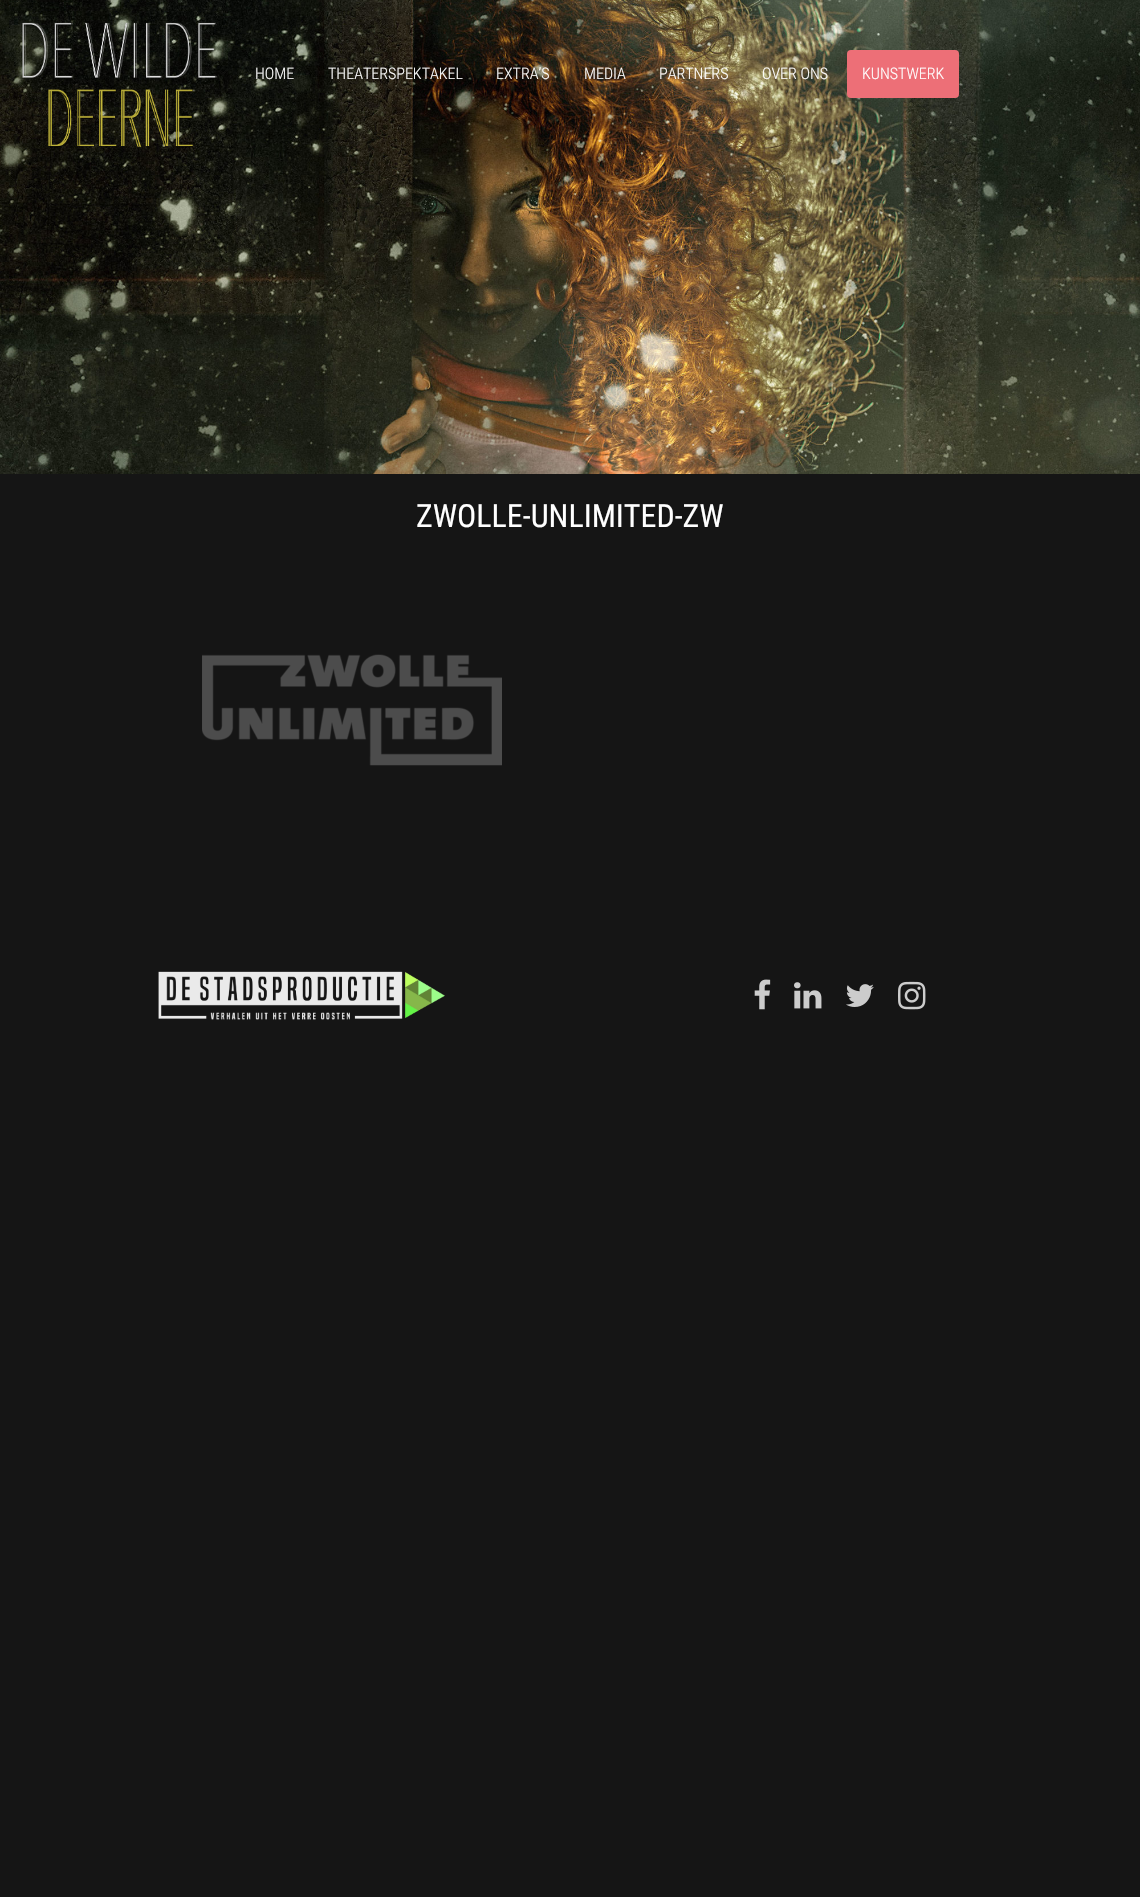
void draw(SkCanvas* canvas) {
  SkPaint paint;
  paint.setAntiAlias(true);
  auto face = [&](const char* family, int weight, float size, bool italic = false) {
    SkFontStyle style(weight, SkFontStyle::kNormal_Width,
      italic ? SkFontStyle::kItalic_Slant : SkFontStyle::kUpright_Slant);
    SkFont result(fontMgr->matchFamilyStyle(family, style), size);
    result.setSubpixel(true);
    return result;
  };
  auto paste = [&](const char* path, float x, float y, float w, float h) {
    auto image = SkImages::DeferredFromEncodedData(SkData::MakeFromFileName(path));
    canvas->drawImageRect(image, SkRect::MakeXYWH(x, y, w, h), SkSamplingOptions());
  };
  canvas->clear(0xff151515);
  paste("img/1.png", 0, 0, 1140, 474);
  paste("img/2.png", 21, 22, 196, 127);
  paint.setColor(0xffed6f77);
  canvas->drawRoundRect(SkRect::MakeXYWH(847, 50, 112, 48), 4, 4, paint);
  paste("img/3.png", 202, 654, 300, 112);
  paste("img/4.png", 158, 971, 287, 49);
  paste("img/5.png", 754, 979, 17, 31);
  paste("img/6.png", 794, 982, 28, 27);
  paste("img/7.png", 846, 984, 28, 23);
  paste("img/8.png", 898, 981, 28, 29);
  auto f0 = face("Roboto Condensed", 300, 16);
  paint.setColor(0xffffffff);
  {
    const struct { const char* s; float x, y; } items[] = {
      {"HOME", 255, 79},
      {"THEATERSPEKTAKEL", 328, 79},
      {"EXTRA’S", 496, 79},
      {"MEDIA", 584, 79},
      {"PARTNERS", 659, 79},
      {"OVER ONS", 762, 79},
      {"KUNSTWERK", 862, 79},
    };
    for (auto [s, x, y] : items) {
      canvas->drawString(s, x, y, f0, paint);
    }
  }
  auto f1 = face("Roboto Condensed", 400, 32);
  canvas->drawString("ZWOLLE-UNLIMITED-ZW", 416, 527, f1, paint);
}
